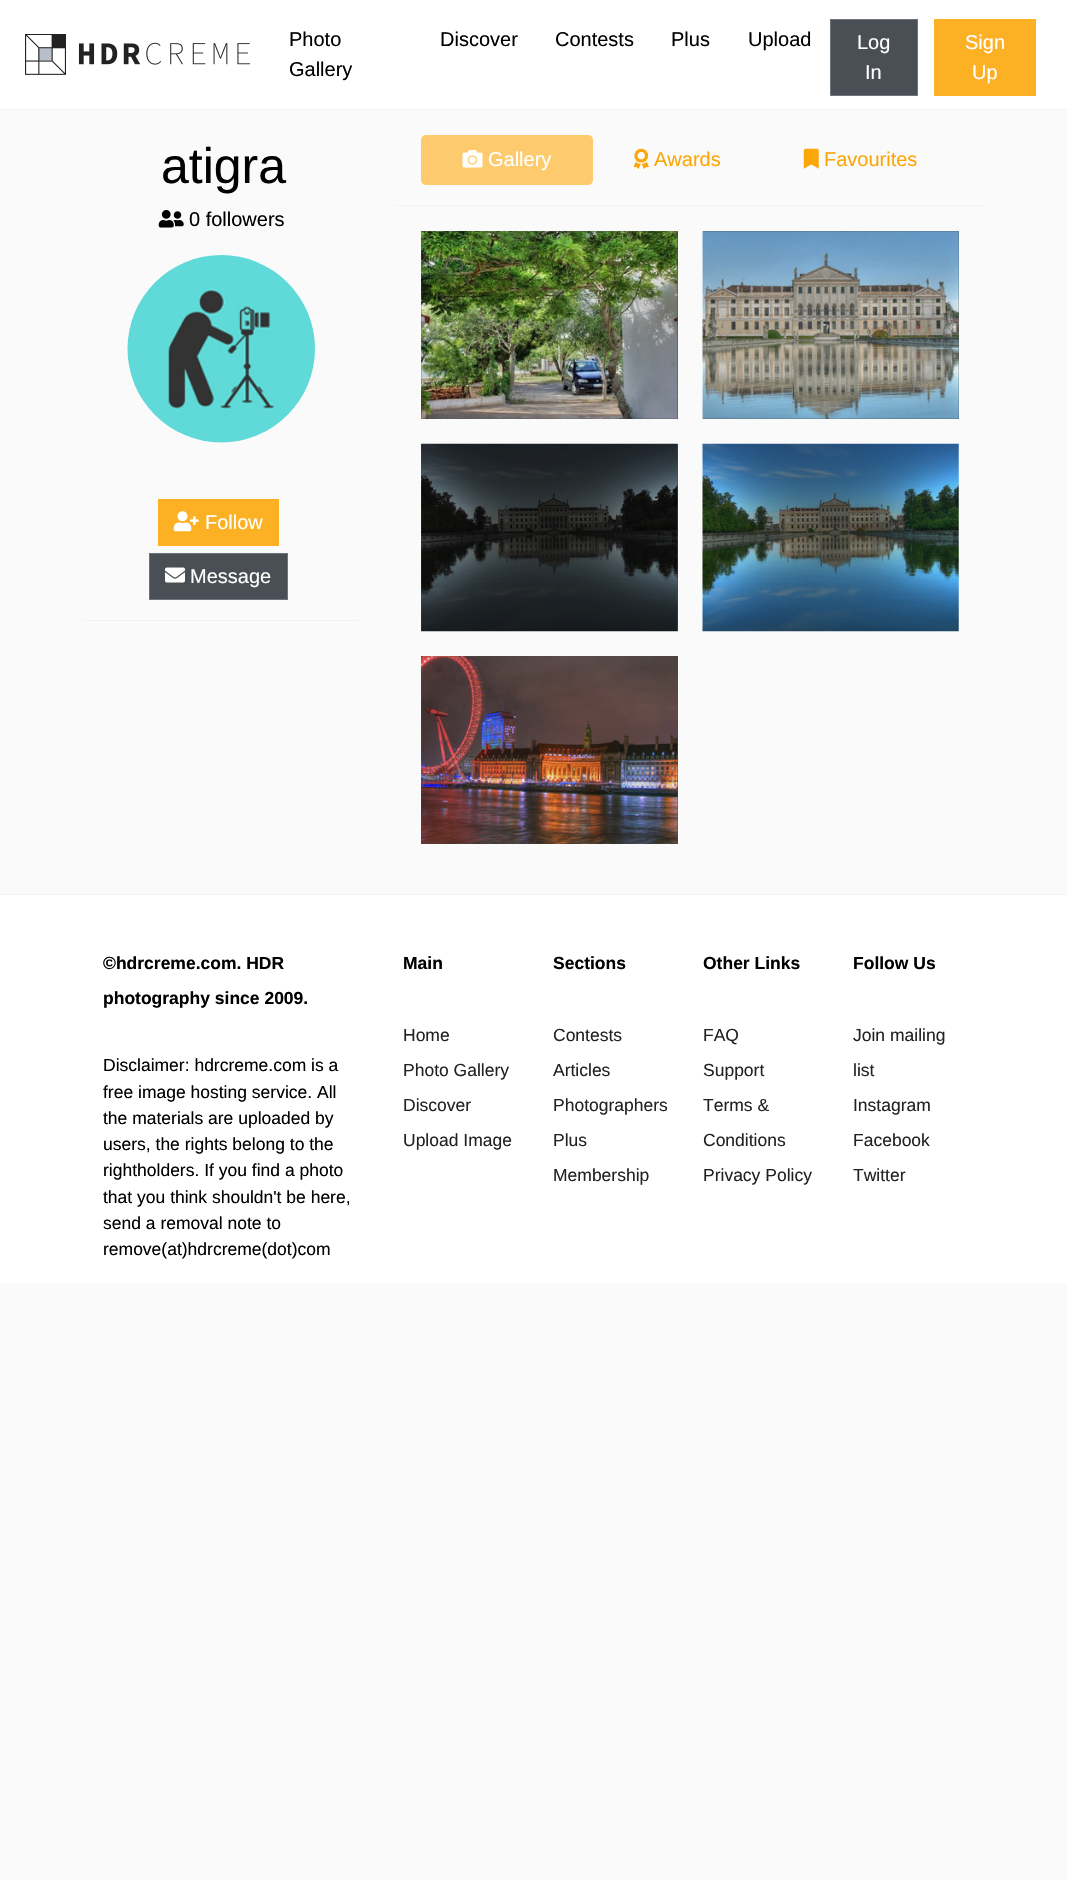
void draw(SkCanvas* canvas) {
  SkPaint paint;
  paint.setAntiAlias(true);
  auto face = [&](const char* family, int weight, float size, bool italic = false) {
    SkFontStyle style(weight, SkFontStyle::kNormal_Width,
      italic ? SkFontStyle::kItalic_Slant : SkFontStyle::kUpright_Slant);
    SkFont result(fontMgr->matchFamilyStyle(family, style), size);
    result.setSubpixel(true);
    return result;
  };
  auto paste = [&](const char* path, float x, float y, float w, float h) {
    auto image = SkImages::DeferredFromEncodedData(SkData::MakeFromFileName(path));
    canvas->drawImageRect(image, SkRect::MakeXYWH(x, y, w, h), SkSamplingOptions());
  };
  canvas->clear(0xfffafafa);
  paint.setColor(0xffffffff);
  canvas->drawRect(SkRect::MakeXYWH(0, 0, 1067, 109), paint);
  paint.setColor(0xfff2f2f2);
  canvas->drawRect(SkRect::MakeXYWH(0, 109, 1067, 1), paint);
  paste("img/1.png", 25, 34, 225, 41);
  paint.setColor(0xff494f54);
  canvas->drawRect(SkRect::MakeXYWH(830.5f, 19.5f, 87, 76), paint);
  paint.setStroke(true);
  paint.setStrokeWidth(1);
  paint.setColor(0xff6c757d);
  canvas->drawRect(SkRect::MakeXYWH(830.5f, 19.5f, 87, 76), paint);
  paint.setStroke(false);
  paint.setColor(0xfffcb023);
  canvas->drawRect(SkRect::MakeXYWH(934, 19, 102, 77), paint);
  paste("img/2.png", 158, 210, 26, 18);
  paste("img/3.png", 127, 255, 188, 188);
  canvas->drawRect(SkRect::MakeXYWH(158, 499, 121, 47), paint);
  paste("img/4.png", 173, 511, 26, 21);
  paint.setColor(0xff494f54);
  canvas->drawRect(SkRect::MakeXYWH(149.5f, 553.5f, 138, 46), paint);
  paint.setStroke(true);
  paint.setColor(0xff6c757d);
  canvas->drawRect(SkRect::MakeXYWH(149.5f, 553.5f, 138, 46), paint);
  paste("img/5.png", 165, 567, 20, 16);
  paint.setStroke(false);
  paint.setColor(0xfff2f2f2);
  canvas->drawRect(SkRect::MakeXYWH(84, 620, 275, 1), paint);
  paint.setColor(0xfffdcb6e);
  canvas->drawRoundRect(SkRect::MakeXYWH(421, 135, 172, 50), 5, 5, paint);
  paste("img/6.png", 462, 150, 21, 18);
  paste("img/7.png", 633, 148, 16, 21);
  paste("img/8.png", 803, 148, 16, 21);
  paint.setColor(0xfff2f2f2);
  canvas->drawRect(SkRect::MakeXYWH(396, 205, 588, 1), paint);
  paint.setColor(0xff4a4a4a);
  canvas->drawRect(SkRect::MakeXYWH(421, 231, 257, 188), paint);
  paste("img/9.png", 421, 231, 257, 188);
  canvas->drawRect(SkRect::MakeXYWH(703, 231, 256, 188), paint);
  paste("img/10.png", 702, 231, 257, 188);
  canvas->drawRect(SkRect::MakeXYWH(421, 444, 257, 187), paint);
  paste("img/11.png", 421, 443, 257, 189);
  paste("img/12.png", 702, 443, 257, 189);
  canvas->drawRect(SkRect::MakeXYWH(421, 656, 257, 188), paint);
  paste("img/13.png", 421, 656, 257, 188);
  paint.setColor(0xffffffff);
  canvas->drawRect(SkRect::MakeXYWH(0, 895, 1067, 388), paint);
  paint.setColor(0xfff2f2f2);
  canvas->drawRect(SkRect::MakeXYWH(0, 894, 1067, 1), paint);
  auto f0 = face("Liberation Sans", 400, 20);
  paint.setColor(0xff000000);
  {
    const struct { const char* s; float x, y; } items[] = {
      {"Photo", 289, 46},
      {"Gallery", 289, 76},
      {"Discover", 440, 46},
      {"Contests", 555, 46},
      {"Plus", 671, 46},
      {"Upload", 748, 46},
    };
    for (auto [s, x, y] : items) {
      canvas->drawString(s, x, y, f0, paint);
    }
  }
  paint.setColor(0xffffffff);
  {
    const struct { const char* s; float x, y; } items[] = {
      {"Log", 857, 49},
      {"In", 865, 79},
      {"Sign", 965, 49},
      {"Up", 972, 79},
    };
    for (auto [s, x, y] : items) {
      canvas->drawString(s, x, y, f0, paint);
    }
  }
  auto f1 = face("Liberation Sans", 400, 50);
  paint.setColor(0xff000000);
  canvas->drawString("atigra", 161, 183, f1, paint);
  canvas->drawString("0 followers", 189, 226, f0, paint);
  paint.setColor(0xffffffff);
  {
    const struct { const char* s; float x, y; } items[] = {
      {"Follow", 205, 529},
      {"Message", 190, 583},
      {"Gallery", 488, 166},
    };
    for (auto [s, x, y] : items) {
      canvas->drawString(s, x, y, f0, paint);
    }
  }
  paint.setColor(0xfffca709);
  canvas->drawString("Awards", 654, 166, f0, paint);
  canvas->drawString("Favourites", 824, 166, f0, paint);
  auto f2 = face("Liberation Sans", 700, 17.5f);
  paint.setColor(0xff000000);
  canvas->drawString("©hdrcreme.com. HDR", 103, 969, f2, paint);
  canvas->drawString("photography since 2009.", 103, 1004, f2, paint);
  auto f3 = face("Liberation Sans", 400, 17.5f);
  {
    const struct { const char* s; float x, y; } items[] = {
      {"Disclaimer: hdrcreme.com is a", 103, 1071},
      {"free image hosting service. All", 103, 1098},
      {"the materials are uploaded by", 103, 1124},
      {"users, the rights belong to the", 103, 1150},
      {"rightholders. If you find a photo", 103, 1176},
      {"that you think shouldn't be here,", 103, 1203},
      {"send a removal note to", 103, 1229},
      {"remove(at)hdrcreme(dot)com", 103, 1255},
    };
    for (auto [s, x, y] : items) {
      canvas->drawString(s, x, y, f3, paint);
    }
  }
  canvas->drawString("Main", 403, 969, f2, paint);
  paint.setColor(0xff222222);
  {
    const struct { const char* s; float x, y; } items[] = {
      {"Home", 403, 1041},
      {"Photo Gallery", 403, 1076},
      {"Discover", 403, 1111},
      {"Upload Image", 403, 1146},
    };
    for (auto [s, x, y] : items) {
      canvas->drawString(s, x, y, f3, paint);
    }
  }
  paint.setColor(0xff000000);
  canvas->drawString("Sections", 553, 969, f2, paint);
  paint.setColor(0xff222222);
  {
    const struct { const char* s; float x, y; } items[] = {
      {"Contests", 553, 1041},
      {"Articles", 553, 1076},
      {"Photographers", 553, 1111},
      {"Plus", 553, 1146},
      {"Membership", 553, 1181},
    };
    for (auto [s, x, y] : items) {
      canvas->drawString(s, x, y, f3, paint);
    }
  }
  paint.setColor(0xff000000);
  canvas->drawString("Other Links", 703, 969, f2, paint);
  paint.setColor(0xff222222);
  {
    const struct { const char* s; float x, y; } items[] = {
      {"FAQ", 703, 1041},
      {"Support", 703, 1076},
      {"Terms &", 703, 1111},
      {"Conditions", 703, 1146},
      {"Privacy Policy", 703, 1181},
    };
    for (auto [s, x, y] : items) {
      canvas->drawString(s, x, y, f3, paint);
    }
  }
  paint.setColor(0xff000000);
  canvas->drawString("Follow Us", 853, 969, f2, paint);
  paint.setColor(0xff222222);
  {
    const struct { const char* s; float x, y; } items[] = {
      {"Join mailing", 853, 1041},
      {"list", 853, 1076},
      {"Instagram", 853, 1111},
      {"Facebook", 853, 1146},
      {"Twitter", 853, 1181},
    };
    for (auto [s, x, y] : items) {
      canvas->drawString(s, x, y, f3, paint);
    }
  }
}
